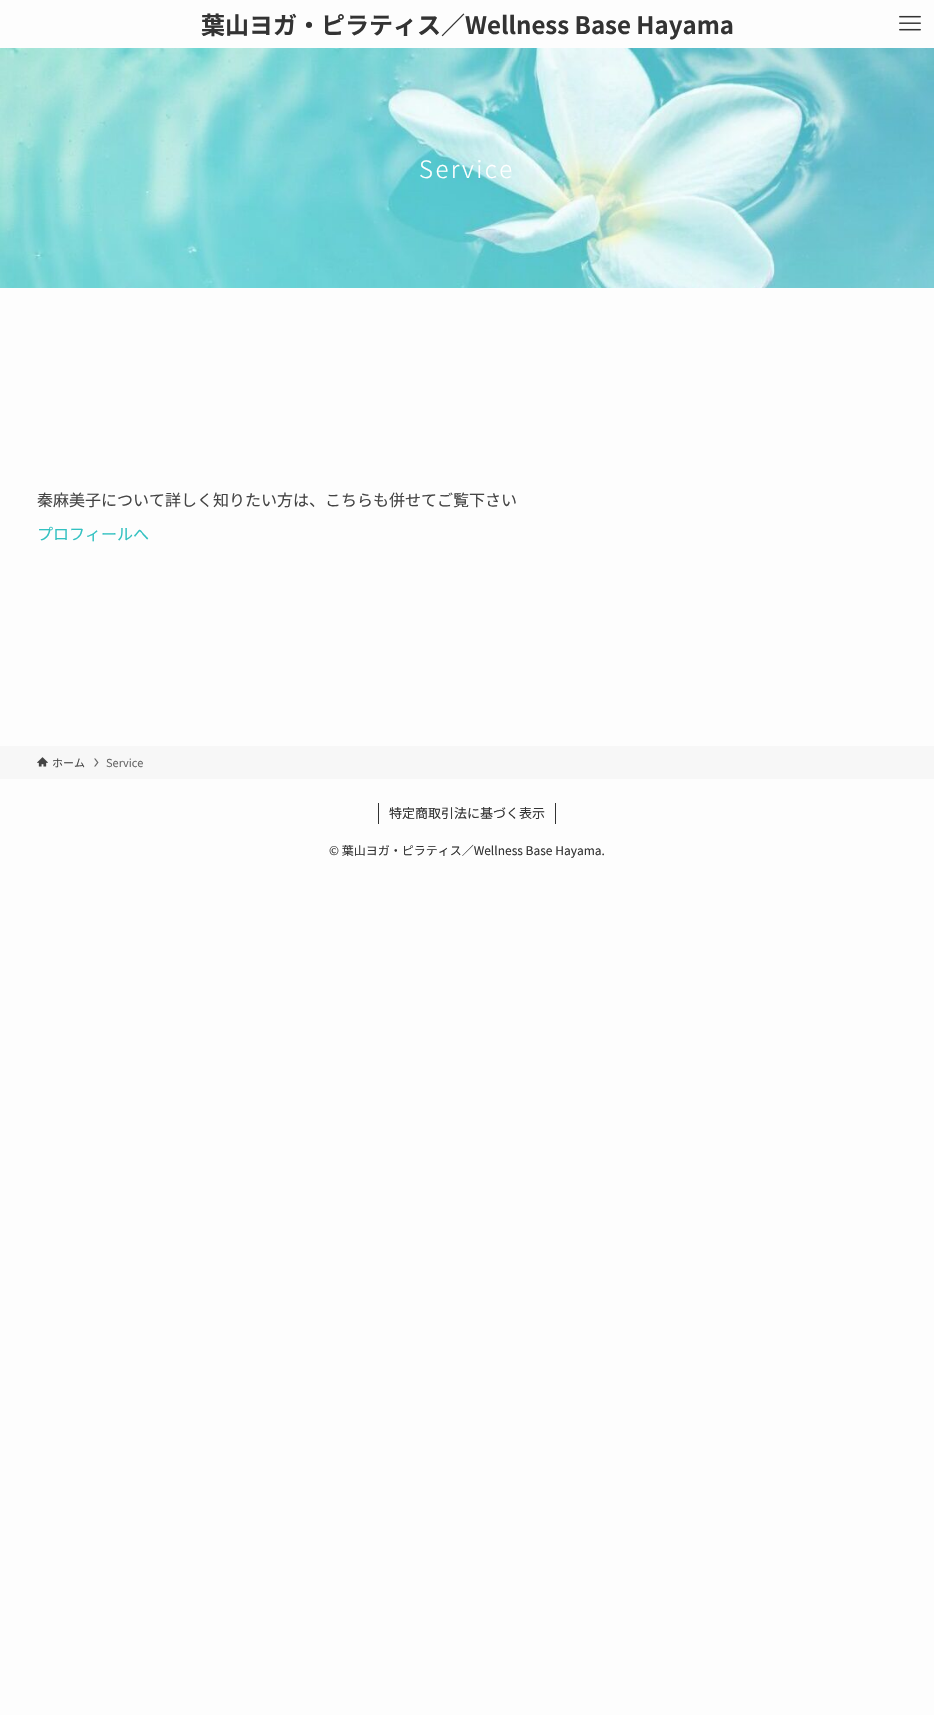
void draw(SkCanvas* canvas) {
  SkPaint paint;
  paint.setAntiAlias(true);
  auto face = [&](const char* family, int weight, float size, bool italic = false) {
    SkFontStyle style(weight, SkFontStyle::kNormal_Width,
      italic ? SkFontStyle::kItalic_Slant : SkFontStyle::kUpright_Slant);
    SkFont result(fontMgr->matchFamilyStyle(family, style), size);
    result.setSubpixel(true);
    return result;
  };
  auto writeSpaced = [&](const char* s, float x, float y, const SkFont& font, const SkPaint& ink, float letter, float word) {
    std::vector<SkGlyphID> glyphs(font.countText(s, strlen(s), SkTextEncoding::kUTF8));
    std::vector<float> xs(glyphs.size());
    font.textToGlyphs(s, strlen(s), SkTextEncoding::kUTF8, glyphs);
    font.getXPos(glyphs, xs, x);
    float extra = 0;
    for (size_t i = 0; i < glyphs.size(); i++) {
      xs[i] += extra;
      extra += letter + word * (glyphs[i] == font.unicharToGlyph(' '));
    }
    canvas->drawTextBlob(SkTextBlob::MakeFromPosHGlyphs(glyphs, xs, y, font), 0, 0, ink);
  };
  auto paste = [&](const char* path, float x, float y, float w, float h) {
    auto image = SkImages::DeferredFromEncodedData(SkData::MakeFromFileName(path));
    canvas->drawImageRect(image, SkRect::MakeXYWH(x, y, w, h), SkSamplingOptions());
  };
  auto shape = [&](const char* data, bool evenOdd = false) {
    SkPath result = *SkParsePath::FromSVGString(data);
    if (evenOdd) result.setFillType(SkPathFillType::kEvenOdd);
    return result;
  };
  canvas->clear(0xfffdfdfd);
  paste("img/1.png", 899, 15, 22, 16);
  paste("img/2.png", 0, 48, 934, 240);
  paint.setColor(0xfff7f7f7);
  canvas->drawRect(SkRect::MakeXYWH(0, 746, 934, 33), paint);
  paste("img/3.png", 37, 757, 11, 10);
  paint.setColor(0xff686868);
  canvas->drawPath(shape("M95.5 758.5H94L97 762.5L94 766.5H95.5L98.5 762.5Z"), paint);
  paint.setColor(0xff333333);
  canvas->drawRect(SkRect::MakeXYWH(555, 803, 1, 21), paint);
  canvas->drawRect(SkRect::MakeXYWH(378, 803, 1, 21), paint);
  auto f0 = face("Noto Sans JP", 700, 24);
  canvas->drawString("葉山ヨガ・ピラティス／Wellness Base Hayama", 201, 34, f0, paint);
  auto f1 = face("Noto Sans JP", 100, 24);
  paint.setColor(0xffffffff);
  writeSpaced("Service", 419, 178, f1, paint, 2.5f, 0);
  auto f2 = face("Noto Sans JP", 400, 16);
  paint.setColor(0xff444444);
  canvas->drawString("秦麻美子について詳しく知りたい方は、こちらも併せてご覧下さい", 37, 506, f2, paint);
  paint.setColor(0xff32c1c1);
  canvas->drawString("プロフィールへ", 37, 540, f2, paint);
  auto f3 = face("Noto Sans JP", 400, 11);
  paint.setColor(0xff444444);
  canvas->drawString("ホーム", 52, 767, f3, paint);
  paint.setColor(0xff686868);
  canvas->drawString("Service", 106, 767, f3, paint);
  auto f4 = face("Noto Sans JP", 400, 13);
  paint.setColor(0xff333333);
  canvas->drawString("特定商取引法に基づく表示", 389, 818, f4, paint);
  auto f5 = face("Noto Sans JP", 400, 12);
  canvas->drawString("© 葉山ヨガ・ピラティス／Wellness Base Hayama.", 329, 855, f5, paint);
}
